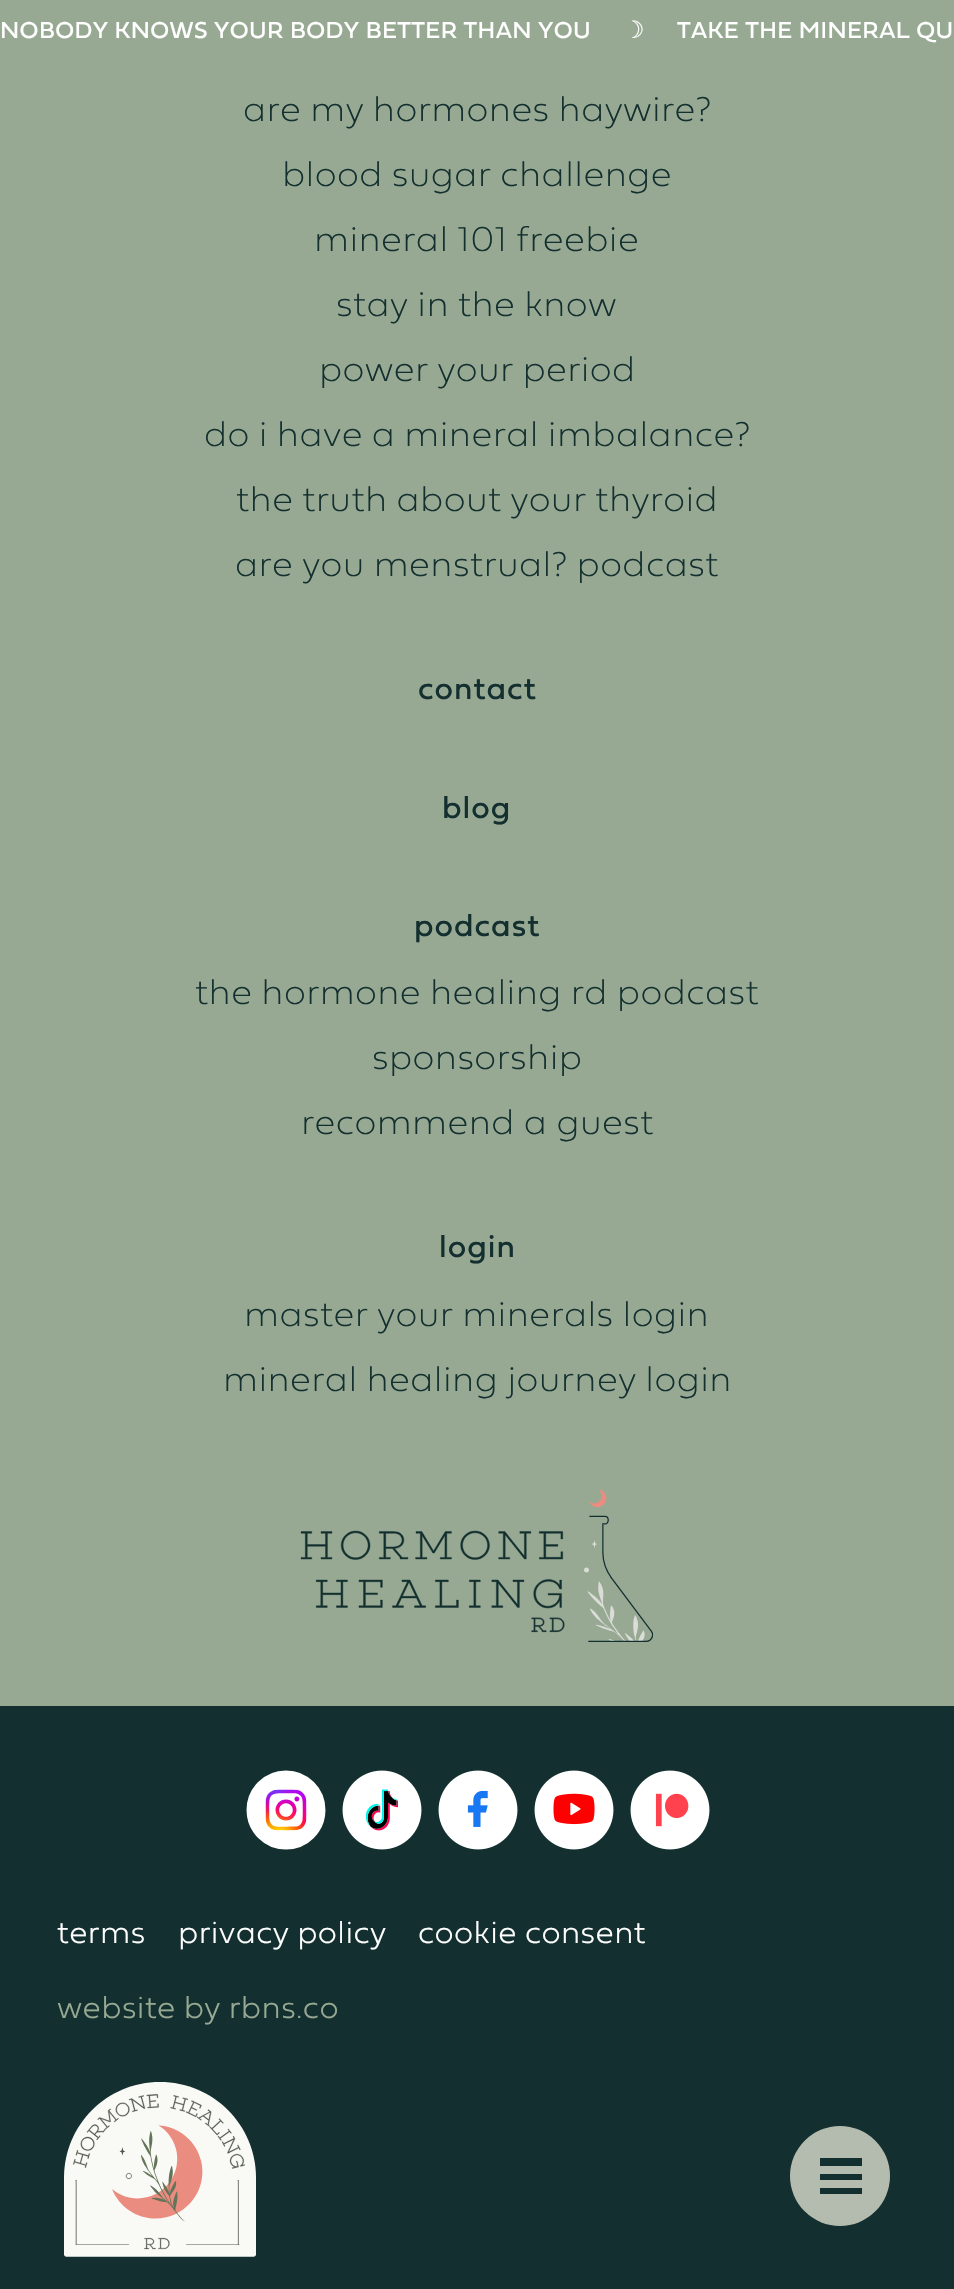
void draw(SkCanvas* canvas) {
  SkPaint paint;
  paint.setAntiAlias(true);
  auto face = [&](const char* family, int weight, float size, bool italic = false) {
    SkFontStyle style(weight, SkFontStyle::kNormal_Width,
      italic ? SkFontStyle::kItalic_Slant : SkFontStyle::kUpright_Slant);
    SkFont result(fontMgr->matchFamilyStyle(family, style), size);
    result.setSubpixel(true);
    return result;
  };
  auto writeSpaced = [&](const char* s, float x, float y, const SkFont& font, const SkPaint& ink, float letter, float word) {
    std::vector<SkGlyphID> glyphs(font.countText(s, strlen(s), SkTextEncoding::kUTF8));
    std::vector<float> xs(glyphs.size());
    font.textToGlyphs(s, strlen(s), SkTextEncoding::kUTF8, glyphs);
    font.getXPos(glyphs, xs, x);
    float extra = 0;
    for (size_t i = 0; i < glyphs.size(); i++) {
      xs[i] += extra;
      extra += letter + word * (glyphs[i] == font.unicharToGlyph(' '));
    }
    canvas->drawTextBlob(SkTextBlob::MakeFromPosHGlyphs(glyphs, xs, y, font), 0, 0, ink);
  };
  auto paste = [&](const char* path, float x, float y, float w, float h) {
    auto image = SkImages::DeferredFromEncodedData(SkData::MakeFromFileName(path));
    canvas->drawImageRect(image, SkRect::MakeXYWH(x, y, w, h), SkSamplingOptions());
  };
  canvas->clear(0xff97a992);
  paste("img/1.png", 300, 1489, 354, 153);
  paint.setColor(0xff132f2f);
  canvas->drawRect(SkRect::MakeXYWH(0, 1706, 954, 583), paint);
  paste("img/2.png", 246, 1770, 80, 80);
  paste("img/3.png", 342, 1770, 80, 80);
  paste("img/4.png", 438, 1770, 80, 80);
  paste("img/5.png", 534, 1770, 80, 80);
  paste("img/6.png", 630, 1770, 80, 80);
  paste("img/7.png", 64, 2082, 192, 175);
  paint.setColor(0xffb4bcaf);
  canvas->drawCircle(840, 2176, 50, paint);
  {
    const struct { float x, y, w, h; SkColor color; } items[] = {
      {820, 2174, 42, 6, 0xff132f2f},
      {820, 2158, 42, 8, 0xff132f2f},
      {820, 2188, 42, 6, 0xff132f2f},
    };
    for (auto [x, y, w, h, color] : items) {
      paint.setColor(color);
      canvas->drawRect(SkRect::MakeXYWH(x, y, w, h), paint);
    }
  }
  auto f0 = face("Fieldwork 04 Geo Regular", 400, 24);
  paint.setColor(0xffffffff);
  writeSpaced("NOBODY KNOWS YOUR BODY BETTER THAN YOU", 0, 38, f0, paint, 0.4f, 0);
  auto f1 = face("DejaVu Sans", 400, 24);
  writeSpaced("☽", 623, 38, f1, paint, 0.4f, 0);
  writeSpaced("TAKE THE MINERAL QU", 677, 38, f0, paint, 0.4f, 0);
  auto f2 = face("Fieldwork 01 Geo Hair", 300, 36);
  paint.setColor(0xff132f2f);
  {
    const struct { const char* s; float x, y; } items[] = {
      {"are my hormones haywire?", 243, 121},
      {"blood sugar challenge", 282, 186},
      {"mineral 101 freebie", 314, 251},
      {"stay in the know", 336, 316},
      {"power your period", 319, 381},
      {"do i have a mineral imbalance?", 204, 446},
      {"the truth about your thyroid", 236, 511},
      {"are you menstrual? podcast", 235, 576},
    };
    for (auto [s, x, y] : items) {
      writeSpaced(s, x, y, f2, paint, 0.4f, 0);
    }
  }
  auto f3 = face("Fieldwork 04 Geo Regular", 400, 32);
  {
    const struct { const char* s; float x, y; } items[] = {
      {"contact", 418, 699},
      {"blog", 442, 818},
      {"podcast", 414, 936},
    };
    for (auto [s, x, y] : items) {
      writeSpaced(s, x, y, f3, paint, 1, 0);
    }
  }
  {
    const struct { const char* s; float x, y; } items[] = {
      {"the hormone healing rd podcast", 195, 1004},
      {"sponsorship", 372, 1069},
      {"recommend a guest", 301, 1134},
    };
    for (auto [s, x, y] : items) {
      writeSpaced(s, x, y, f2, paint, 0.4f, 0);
    }
  }
  writeSpaced("login", 439, 1257, f3, paint, 1, 0);
  writeSpaced("master your minerals login", 244, 1326, f2, paint, 0.4f, 0);
  writeSpaced("mineral healing journey login", 223, 1391, f2, paint, 0.4f, 0);
  auto f4 = face("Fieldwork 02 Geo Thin", 100, 32);
  paint.setColor(0xffffffff);
  {
    const struct { const char* s; float x, y; } items[] = {
      {"terms", 57, 1943},
      {"privacy policy", 178, 1943},
      {"cookie consent", 418, 1943},
    };
    for (auto [s, x, y] : items) {
      writeSpaced(s, x, y, f4, paint, 0.4f, 0);
    }
  }
  paint.setColor(0xff97a992);
  writeSpaced("website by rbns.co", 57, 2018, f4, paint, 0.4f, 0);
}
